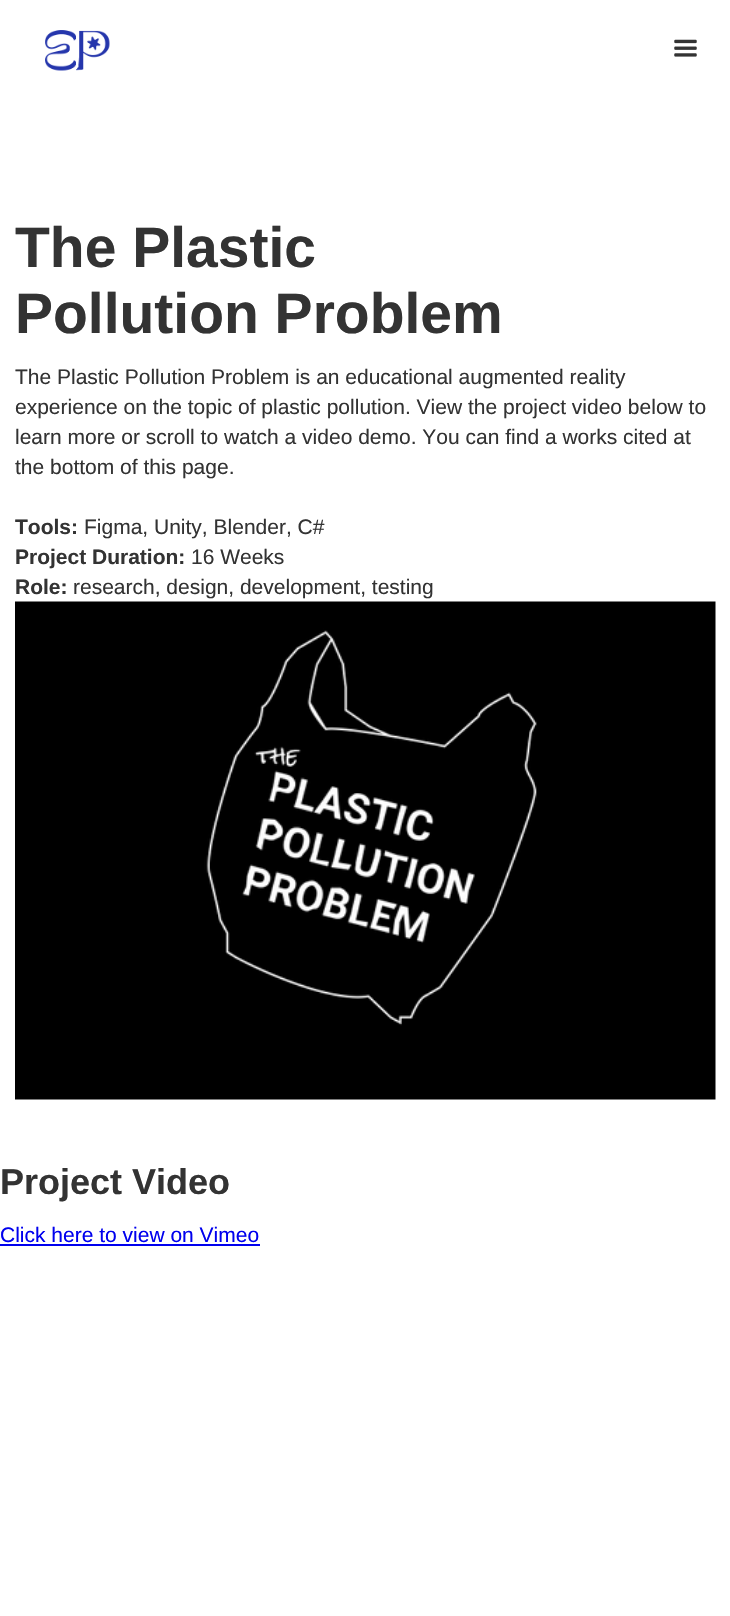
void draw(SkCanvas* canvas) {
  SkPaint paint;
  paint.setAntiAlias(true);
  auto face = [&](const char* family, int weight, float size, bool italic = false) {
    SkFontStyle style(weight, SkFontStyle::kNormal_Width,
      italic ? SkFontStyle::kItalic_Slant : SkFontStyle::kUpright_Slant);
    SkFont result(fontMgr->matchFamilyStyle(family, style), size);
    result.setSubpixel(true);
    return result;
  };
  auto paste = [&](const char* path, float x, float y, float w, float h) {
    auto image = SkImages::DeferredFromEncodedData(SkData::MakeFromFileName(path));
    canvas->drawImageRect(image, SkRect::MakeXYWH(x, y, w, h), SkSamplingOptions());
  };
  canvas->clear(0xffffffff);
  paste("img/1.png", 45, 30, 65, 41);
  paste("img/2.png", 674, 39, 23, 18);
  paste("img/3.png", 15, 601, 701, 499);
  paint.setColor(0xff0000ee);
  canvas->drawRect(SkRect::MakeXYWH(0, 1244, 260, 2), paint);
  auto f0 = face("Liberation Sans", 700, 57);
  paint.setColor(0xff333333);
  canvas->drawString("The Plastic", 15, 267, f0, paint);
  canvas->drawString("Pollution Problem", 15, 333, f0, paint);
  auto f1 = face("Liberation Sans", 400, 21);
  {
    const struct { const char* s; float x, y; } items[] = {
      {"The Plastic Pollution Problem is an educational augmented reality", 15, 384},
      {"experience on the topic of plastic pollution. View the project video below to", 15, 414},
      {"learn more or scroll to watch a video demo. You can find a works cited at", 15, 444},
      {"the bottom of this page.", 15, 474},
    };
    for (auto [s, x, y] : items) {
      canvas->drawString(s, x, y, f1, paint);
    }
  }
  auto f2 = face("Liberation Sans", 700, 21);
  canvas->drawString("Tools:", 15, 534, f2, paint);
  canvas->drawString("Figma, Unity, Blender, C#", 84, 534, f1, paint);
  canvas->drawString("Project Duration:", 15, 564, f2, paint);
  canvas->drawString("16 Weeks", 191, 564, f1, paint);
  canvas->drawString("Role:", 15, 594, f2, paint);
  canvas->drawString("research, design, development, testing", 73, 594, f1, paint);
  auto f3 = face("Liberation Sans", 700, 36);
  canvas->drawString("Project Video", 0, 1194, f3, paint);
  paint.setColor(0xff0000ee);
  canvas->drawString("Click here to view on Vimeo", 0, 1242, f1, paint);
}
